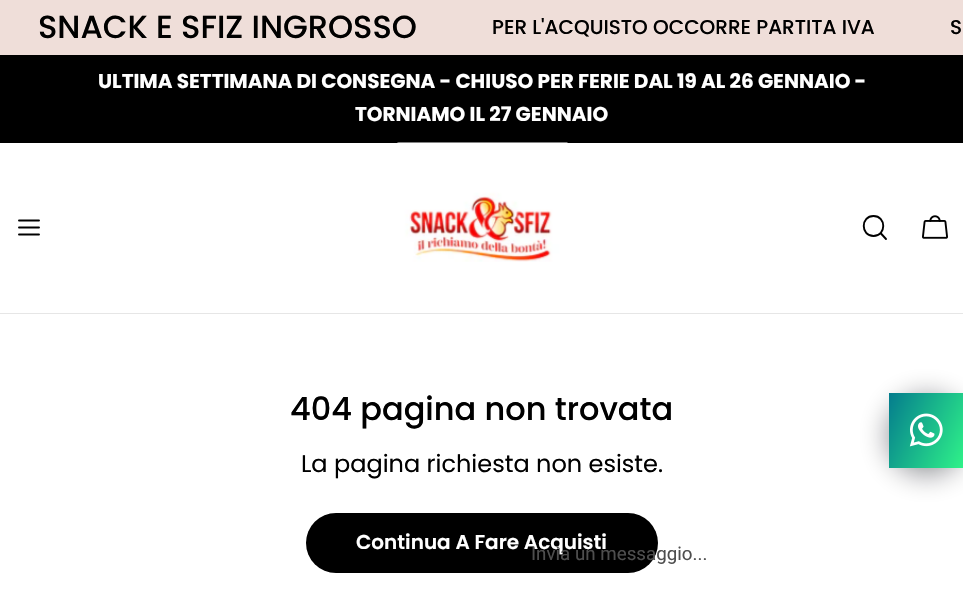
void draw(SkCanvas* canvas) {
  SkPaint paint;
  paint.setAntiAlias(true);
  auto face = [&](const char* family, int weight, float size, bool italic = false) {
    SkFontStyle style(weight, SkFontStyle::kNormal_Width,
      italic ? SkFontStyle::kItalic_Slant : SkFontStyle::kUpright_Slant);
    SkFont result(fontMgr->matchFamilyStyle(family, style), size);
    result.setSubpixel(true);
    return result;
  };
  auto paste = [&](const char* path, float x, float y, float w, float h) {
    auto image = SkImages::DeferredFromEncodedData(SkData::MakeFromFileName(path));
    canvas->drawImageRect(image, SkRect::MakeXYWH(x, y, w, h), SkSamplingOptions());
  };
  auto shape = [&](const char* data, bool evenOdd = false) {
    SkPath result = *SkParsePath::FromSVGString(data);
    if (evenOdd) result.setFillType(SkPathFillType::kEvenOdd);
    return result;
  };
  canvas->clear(0xffffffff);
  {
    const struct { float x, y, w, h; SkColor color; } items[] = {
      {0, 0, 963, 55, 0xffefded9},
      {0, 55, 963, 88, 0xff000000},
      {0, 313, 963, 1, 0xffe6e6e6},
    };
    for (auto [x, y, w, h, color] : items) {
      paint.setColor(color);
      canvas->drawRect(SkRect::MakeXYWH(x, y, w, h), paint);
    }
  }
  paint.setStroke(true);
  paint.setStrokeWidth(1.9f);
  paint.setStrokeCap(SkPaint::kRound_Cap);
  paint.setStrokeJoin(SkPaint::kRound_Join);
  paint.setColor(0xff000000);
  canvas->drawPath(shape("M19 227.5H39M19 220.5H39M19 234.5H39"), paint);
  paste("img/1.png", 397, 142, 171, 120);
  canvas->drawPath(shape("M873.5 236C886.5 236 886.5 216 873.5 216C860.5 216 860.5 236 873.5 236ZM880.5 233L886 239"), paint);
  paste("img/2.png", 922, 215, 26, 24);
  paint.setStroke(false);
  canvas->drawRoundRect(SkRect::MakeXYWH(306, 513, 352, 60), 30, 30, paint);
  paint.setColor(0x80020610);
  paint.setMaskFilter(SkMaskFilter::MakeBlur(kNormal_SkBlurStyle, 15));
  canvas->drawRoundRect(SkRect::MakeXYWH(889, 398, 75, 75), 37.5f, 37.5f, paint);
  paint.setMaskFilter(nullptr);
  {
    const SkColor colors[] = {0xff047c8d, 0xff2ff289};
    const float stops[] = {0, 1};
    const SkPoint ends[] = {{881, 409}, {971, 451}};
    paint.setShader(SkGradientShader::MakeLinear(ends, colors, stops, 2, SkTileMode::kClamp));
    paint.setAlpha(255);
  }
  canvas->drawRect(SkRect::MakeXYWH(889, 393, 74, 75), paint);
  paste("img/3.png", 909, 413, 34, 34);
  auto f0 = face("Poppins", 500, 32);
  paint.setShader(nullptr);
  paint.setColor(0xff000000);
  canvas->drawString("SNACK E SFIZ INGROSSO", 38, 38, f0, paint);
  auto f1 = face("Poppins", 500, 20);
  canvas->drawString("PER L'ACQUISTO OCCORRE PARTITA IVA", 492, 34, f1, paint);
  canvas->drawString("S", 950, 34, f1, paint);
  auto f2 = face("Poppins", 700, 20);
  paint.setColor(0xffffffff);
  canvas->drawString("ULTIMA SETTIMANA DI CONSEGNA - CHIUSO PER FERIE DAL 19 AL 26 GENNAIO -", 98, 88, f2, paint);
  canvas->drawString("TORNIAMO IL 27 GENNAIO", 355, 121, f2, paint);
  paint.setColor(0xff000000);
  canvas->drawString("404 pagina non trovata", 290, 420, f0, paint);
  auto f3 = face("Poppins", 400, 24);
  canvas->drawString("La pagina richiesta non esiste.", 301, 472, f3, paint);
  auto f4 = face("Poppins", 600, 20);
  paint.setColor(0xffffffff);
  canvas->drawString("Continua A Fare Acquisti", 356, 549, f4, paint);
  auto f5 = face("Roboto", 400, 18.75f);
  paint.setColor(0xff4e4e4e);
  canvas->drawString("Invia un messaggio...", 531, 560, f5, paint);
}
